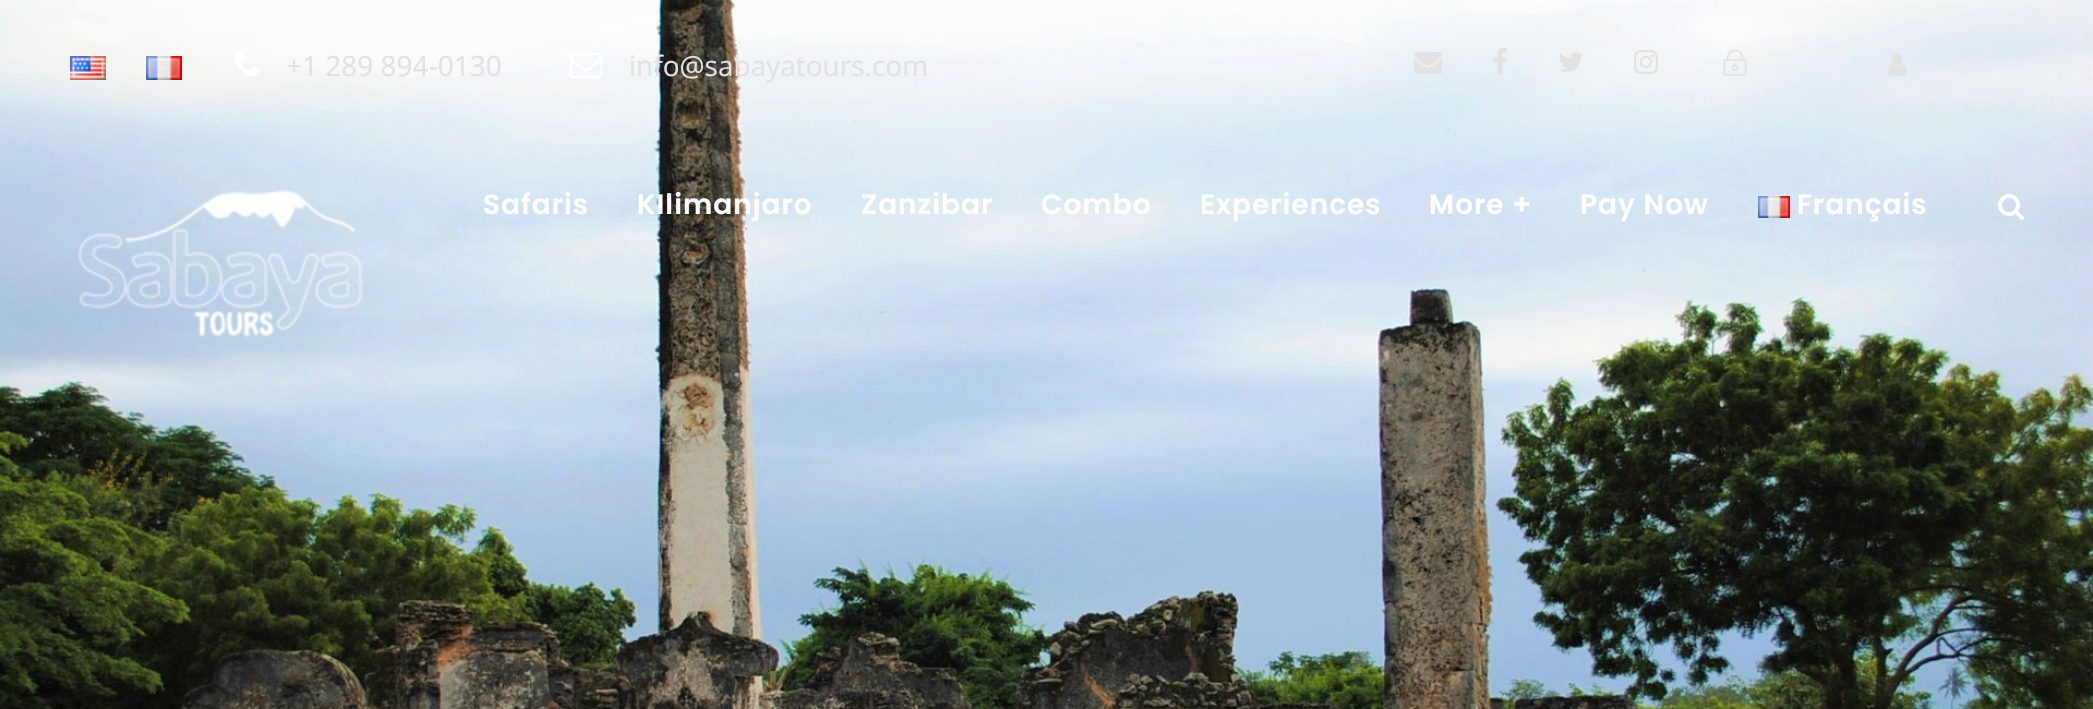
void draw(SkCanvas* canvas) {
  SkPaint paint;
  paint.setAntiAlias(true);
  auto face = [&](const char* family, int weight, float size, bool italic = false) {
    SkFontStyle style(weight, SkFontStyle::kNormal_Width,
      italic ? SkFontStyle::kItalic_Slant : SkFontStyle::kUpright_Slant);
    SkFont result(fontMgr->matchFamilyStyle(family, style), size);
    result.setSubpixel(true);
    return result;
  };
  auto writeSpaced = [&](const char* s, float x, float y, const SkFont& font, const SkPaint& ink, float letter, float word) {
    std::vector<SkGlyphID> glyphs(font.countText(s, strlen(s), SkTextEncoding::kUTF8));
    std::vector<float> xs(glyphs.size());
    font.textToGlyphs(s, strlen(s), SkTextEncoding::kUTF8, glyphs);
    font.getXPos(glyphs, xs, x);
    float extra = 0;
    for (size_t i = 0; i < glyphs.size(); i++) {
      xs[i] += extra;
      extra += letter + word * (glyphs[i] == font.unicharToGlyph(' '));
    }
    canvas->drawTextBlob(SkTextBlob::MakeFromPosHGlyphs(glyphs, xs, y, font), 0, 0, ink);
  };
  auto paste = [&](const char* path, float x, float y, float w, float h) {
    auto image = SkImages::DeferredFromEncodedData(SkData::MakeFromFileName(path));
    canvas->drawImageRect(image, SkRect::MakeXYWH(x, y, w, h), SkSamplingOptions());
  };
  canvas->clear(0xffffffff);
  paste("img/1.png", 0, 0, 2093, 709);
  paste("img/2.png", 70, 56, 36, 24);
  paste("img/3.png", 146, 56, 36, 24);
  paste("img/4.png", 234, 51, 25, 25);
  paste("img/5.png", 570, 53, 32, 25);
  paste("img/6.png", 1414, 52, 28, 22);
  paste("img/7.png", 1493, 48, 14, 26);
  paste("img/8.png", 1559, 52, 24, 20);
  paste("img/9.png", 1634, 50, 24, 24);
  paste("img/10.png", 1723, 49, 24, 27);
  paste("img/11.png", 1888, 53, 19, 23);
  paste("img/12.png", 77, 189, 286, 148);
  paste("img/13.png", 1758, 196, 32, 22);
  paste("img/14.png", 1998, 194, 26, 26);
  auto f0 = face("Open Sans", 400, 28);
  paint.setColor(0xffe2e2e2);
  canvas->drawString("+1 289 894-0130", 286, 76, f0, paint);
  canvas->drawString("info@sabayatours.com", 629, 76, f0, paint);
  auto f1 = face("Poppins", 600, 28);
  paint.setColor(0xffffffff);
  {
    const struct { const char* s; float x, y; } items[] = {
      {"Safaris", 483, 214},
      {"KIlimanjaro", 637, 214},
      {"Zanzibar", 861, 214},
      {"Combo", 1041, 214},
      {"Experiences", 1200, 214},
      {"More +", 1429, 214},
      {"Pay Now", 1580, 214},
      {"Français", 1797, 214},
    };
    for (auto [s, x, y] : items) {
      writeSpaced(s, x, y, f1, paint, 1, 0);
    }
  }
}
